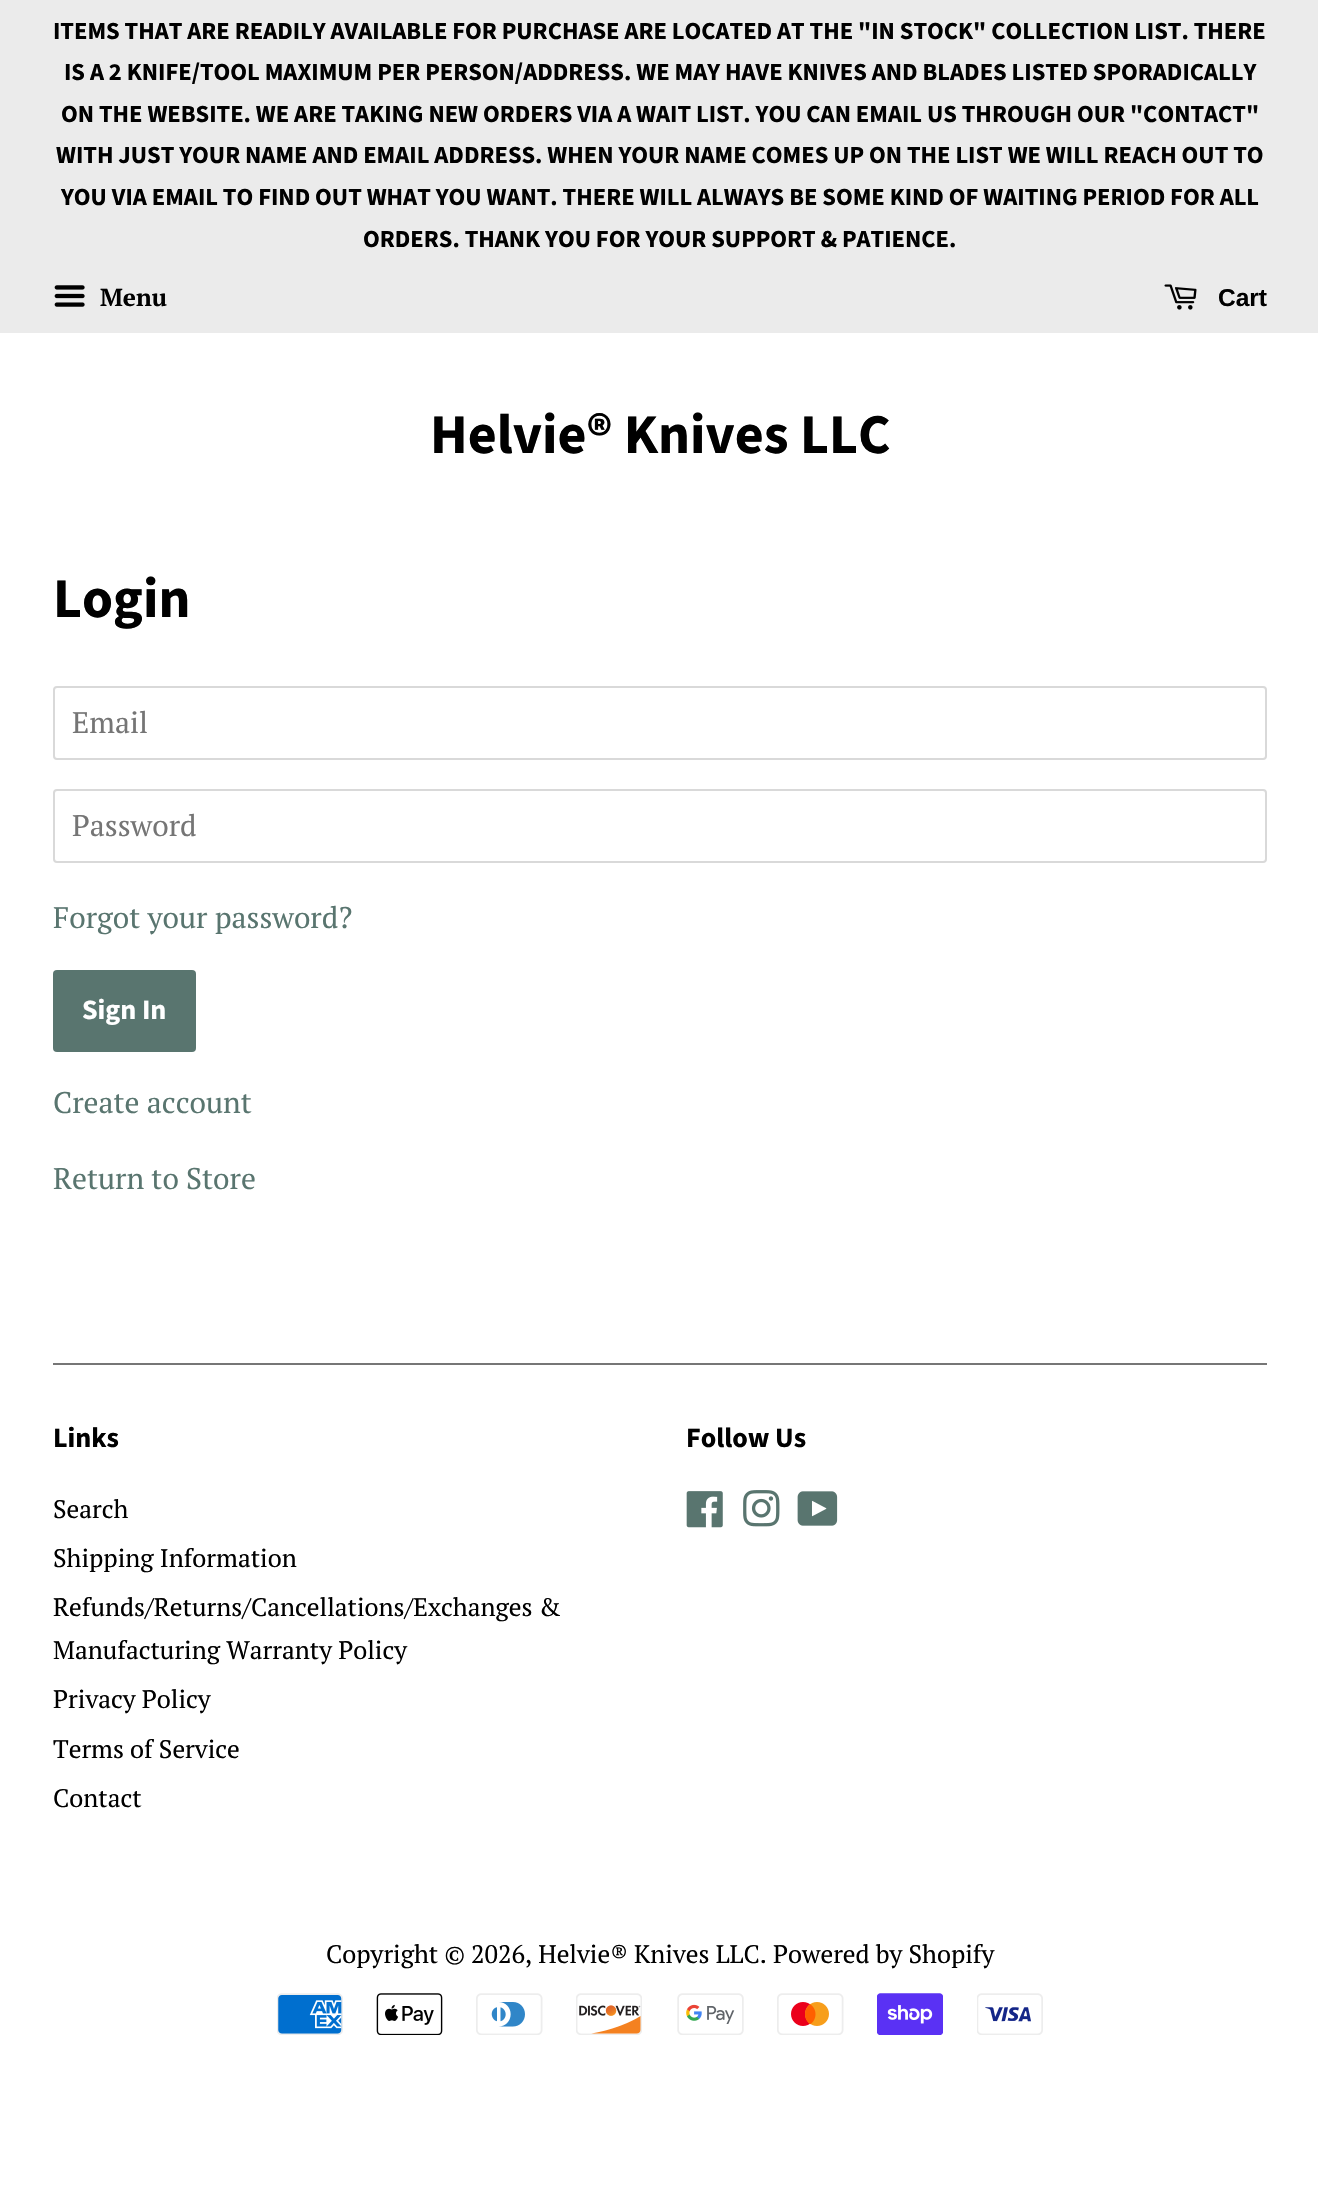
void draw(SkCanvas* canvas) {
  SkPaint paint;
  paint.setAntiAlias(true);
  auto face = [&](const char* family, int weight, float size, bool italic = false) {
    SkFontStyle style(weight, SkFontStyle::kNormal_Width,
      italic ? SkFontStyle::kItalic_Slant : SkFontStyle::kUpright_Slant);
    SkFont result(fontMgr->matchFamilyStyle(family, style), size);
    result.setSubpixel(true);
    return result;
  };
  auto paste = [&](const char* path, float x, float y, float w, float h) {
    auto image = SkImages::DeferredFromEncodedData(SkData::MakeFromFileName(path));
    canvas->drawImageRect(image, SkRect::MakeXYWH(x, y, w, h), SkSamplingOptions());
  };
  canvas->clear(0xffffffff);
  paint.setColor(0xffebebeb);
  canvas->drawRect(SkRect::MakeXYWH(0, 0, 1318, 333), paint);
  paste("img/1.png", 54, 285, 31, 22);
  paste("img/2.png", 1164, 284, 33, 26);
  paint.setStroke(true);
  paint.setStrokeWidth(2);
  paint.setColor(0xffd9d9d9);
  canvas->drawRoundRect(SkRect::MakeXYWH(54, 687, 1212, 72), 3, 3, paint);
  canvas->drawRoundRect(SkRect::MakeXYWH(54, 790, 1212, 72), 3, 3, paint);
  paint.setStroke(false);
  paint.setColor(0xff59756f);
  canvas->drawRoundRect(SkRect::MakeXYWH(53, 970, 143, 82), 4, 4, paint);
  paint.setColor(0xff767676);
  canvas->drawRect(SkRect::MakeXYWH(53, 1363, 1214, 2), paint);
  paste("img/3.png", 686, 1491, 37, 37);
  paste("img/4.png", 743, 1490, 37, 37);
  paste("img/5.png", 797, 1491, 41, 35);
  paste("img/6.png", 277, 1993, 66, 42);
  paste("img/7.png", 376, 1993, 67, 42);
  paste("img/8.png", 476, 1993, 67, 42);
  paste("img/9.png", 576, 1993, 66, 42);
  paste("img/10.png", 677, 1993, 67, 42);
  paste("img/11.png", 777, 1993, 67, 42);
  paste("img/12.png", 877, 1993, 66, 42);
  paste("img/13.png", 977, 1993, 66, 42);
  auto f0 = face("Source Sans Pro", 700, 24.5f);
  paint.setColor(0xff000000);
  {
    const struct { const char* s; float x, y; } items[] = {
      {"ITEMS THAT ARE READILY AVAILABLE FOR PURCHASE ARE LOCATED AT THE \"IN STOCK\" COLLECTION LIST. THERE", 53, 39},
      {"IS A 2 KNIFE/TOOL MAXIMUM PER PERSON/ADDRESS. WE MAY HAVE KNIVES AND BLADES LISTED SPORADICALLY", 64, 80},
      {"ON THE WEBSITE. WE ARE TAKING NEW ORDERS VIA A WAIT LIST. YOU CAN EMAIL US THROUGH OUR \"CONTACT\"", 61, 122},
      {"WITH JUST YOUR NAME AND EMAIL ADDRESS. WHEN YOUR NAME COMES UP ON THE LIST WE WILL REACH OUT TO", 56, 163},
      {"YOU VIA EMAIL TO FIND OUT WHAT YOU WANT. THERE WILL ALWAYS BE SOME KIND OF WAITING PERIOD FOR ALL", 61, 205},
      {"ORDERS. THANK YOU FOR YOUR SUPPORT & PATIENCE.", 363, 247},
    };
    for (auto [s, x, y] : items) {
      canvas->drawString(s, x, y, f0, paint);
    }
  }
  auto f1 = face("PT Serif", 700, 24.5f);
  canvas->drawString("Menu", 100, 306, f1, paint);
  auto f2 = face("Liberation Sans", 700, 24.5f);
  canvas->drawString("Cart", 1218, 306, f2, paint);
  auto f3 = face("Source Sans Pro", 700, 56);
  canvas->drawString("Helvie® Knives LLC", 430, 453, f3, paint);
  canvas->drawString("Login", 53, 617, f3, paint);
  auto f4 = face("PT Serif", 400, 29.75f);
  paint.setColor(0xff757575);
  canvas->drawString("Email", 72, 733, f4, paint);
  canvas->drawString("Password", 72, 836, f4, paint);
  paint.setColor(0xff59756f);
  canvas->drawString("Forgot your password?", 53, 928, f4, paint);
  auto f5 = face("Source Sans Pro", 700, 28);
  paint.setColor(0xffffffff);
  canvas->drawString("Sign In", 82, 1019, f5, paint);
  paint.setColor(0xff59756f);
  canvas->drawString("Create account", 53, 1113, f4, paint);
  canvas->drawString("Return to Store", 53, 1189, f4, paint);
  paint.setColor(0xff000000);
  canvas->drawString("Links", 53, 1447, f5, paint);
  auto f6 = face("PT Serif", 400, 25.3f);
  {
    const struct { const char* s; float x, y; } items[] = {
      {"Search", 53, 1518},
      {"Shipping Information", 53, 1567},
      {"Refunds/Returns/Cancellations/Exchanges &", 53, 1616},
      {"Manufacturing Warranty Policy", 53, 1659},
      {"Privacy Policy", 53, 1708},
      {"Terms of Service", 53, 1758},
      {"Contact", 53, 1807},
    };
    for (auto [s, x, y] : items) {
      canvas->drawString(s, x, y, f6, paint);
    }
  }
  canvas->drawString("Follow Us", 686, 1447, f5, paint);
  canvas->drawString("Copyright © 2026, Helvie® Knives LLC. Powered by Shopify", 326, 1963, f6, paint);
}
